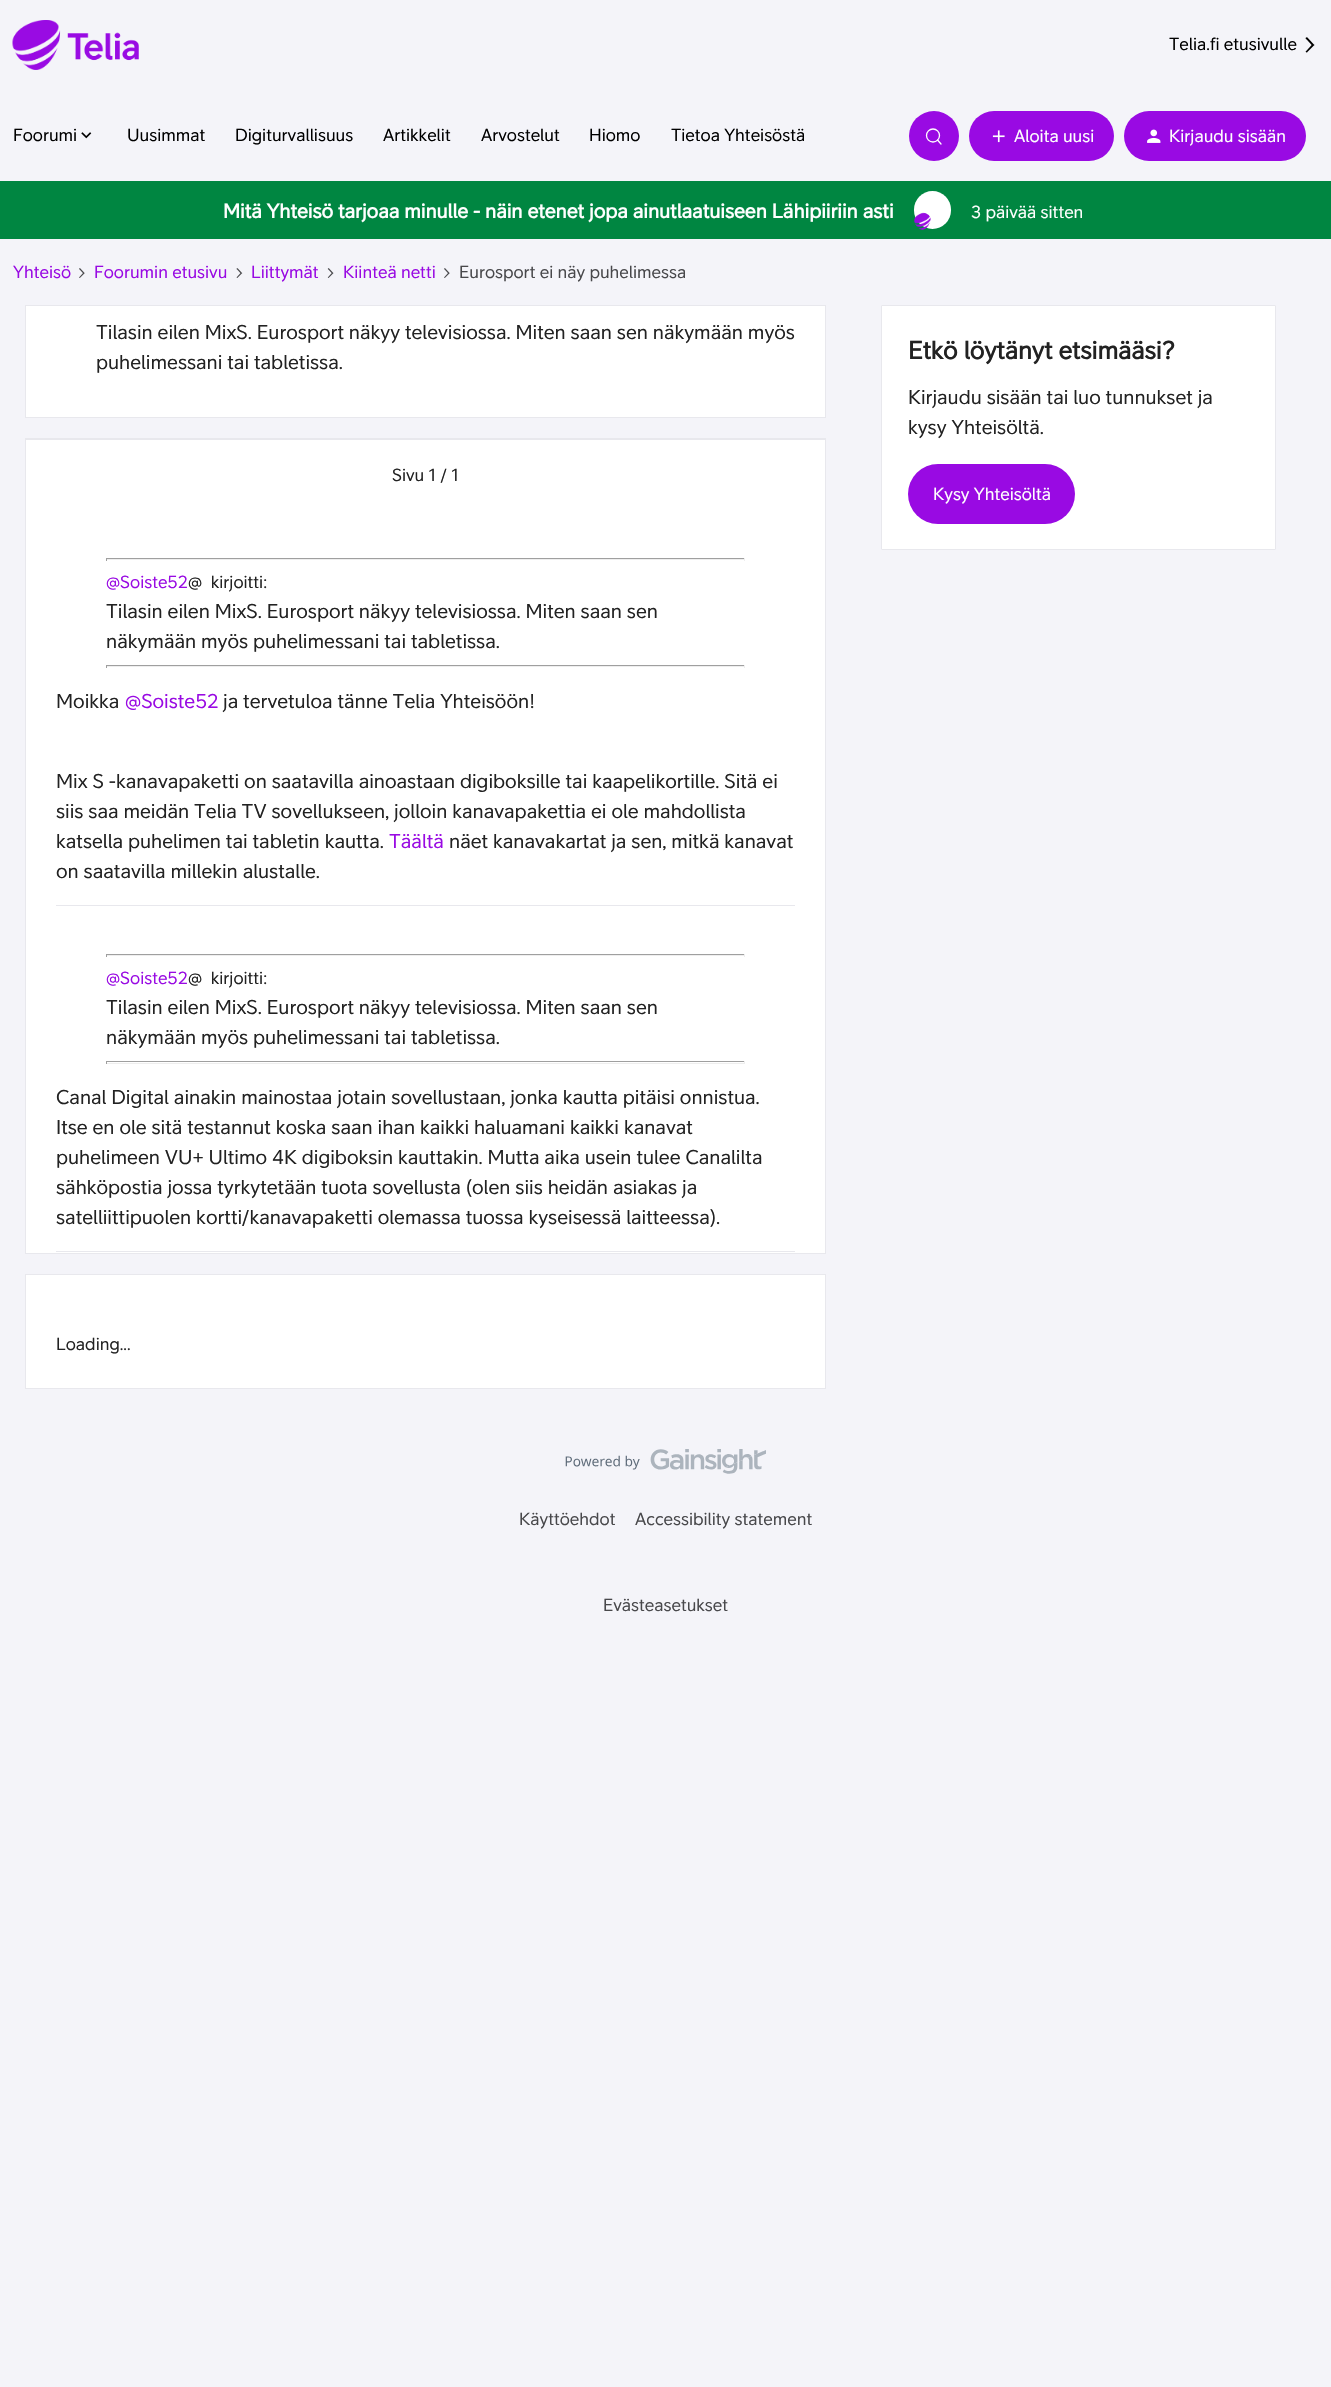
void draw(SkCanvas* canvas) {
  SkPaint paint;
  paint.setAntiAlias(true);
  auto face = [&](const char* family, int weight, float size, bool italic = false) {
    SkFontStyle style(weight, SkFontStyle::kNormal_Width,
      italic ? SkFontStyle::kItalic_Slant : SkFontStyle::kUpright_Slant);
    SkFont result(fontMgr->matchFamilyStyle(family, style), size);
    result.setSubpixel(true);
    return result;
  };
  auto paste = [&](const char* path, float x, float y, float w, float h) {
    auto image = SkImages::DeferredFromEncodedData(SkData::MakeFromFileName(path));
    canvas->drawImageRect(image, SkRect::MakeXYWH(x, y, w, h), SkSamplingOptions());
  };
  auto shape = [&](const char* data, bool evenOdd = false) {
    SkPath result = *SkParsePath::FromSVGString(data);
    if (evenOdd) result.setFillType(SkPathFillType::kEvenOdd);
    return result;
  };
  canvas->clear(0xfff4f4f9);
  paste("img/1.png", 12, 20, 127, 50);
  paste("img/2.png", 1305, 37, 10, 16);
  paste("img/3.png", 81, 132, 11, 7);
  paint.setColor(0xff990ae3);
  canvas->drawCircle(934, 136, 25, paint);
  paint.setStroke(true);
  paint.setStrokeWidth(1.3f);
  paint.setColor(0xffffffff);
  canvas->drawCircle(933, 135.5f, 6.5f, paint);
  paint.setStrokeCap(SkPaint::kRound_Cap);
  canvas->drawPath(shape("M937.5 140L941 144"), paint);
  paint.setStroke(false);
  paint.setColor(0xff990ae3);
  canvas->drawRoundRect(SkRect::MakeXYWH(969, 111, 145, 50), 25, 25, paint);
  paste("img/4.png", 992, 130, 13, 13);
  canvas->drawRoundRect(SkRect::MakeXYWH(1124, 111, 182, 50), 25, 25, paint);
  paste("img/5.png", 1147, 129, 14, 14);
  paint.setColor(0xff008641);
  canvas->drawRect(SkRect::MakeXYWH(0, 181, 1331, 58), paint);
  paint.setColor(0xffffffff);
  canvas->drawRoundRect(SkRect::MakeXYWH(914, 191, 37, 38), 18.5f, 18.5f, paint);
  paste("img/6.png", 914, 212, 17, 18);
  paste("img/7.png", 79, 268, 6, 10);
  paste("img/8.png", 236, 268, 7, 10);
  paste("img/9.png", 327, 268, 7, 10);
  paste("img/7.png", 444, 268, 6, 10);
  canvas->drawRect(SkRect::MakeXYWH(25.5f, 305.5f, 800, 112), paint);
  paint.setStroke(true);
  paint.setStrokeWidth(1);
  paint.setStrokeCap(SkPaint::kButt_Cap);
  paint.setColor(0xffe8e8ed);
  canvas->drawRect(SkRect::MakeXYWH(25.5f, 305.5f, 800, 112), paint);
  paint.setStroke(false);
  paint.setColor(0xffffffff);
  canvas->drawRect(SkRect::MakeXYWH(26, 440, 799, 813), paint);
  paint.setStroke(true);
  paint.setColor(0xffe8e8ed);
  canvas->drawRect(SkRect::MakeXYWH(25.5f, 438.5f, 800, 815), paint);
  paint.setStroke(false);
  {
    const struct { float x, y, w, h; SkColor color; } items[] = {
      {26, 439, 799, 1, 0xffe8e8ed},
      {106, 558, 639, 1, 0xff9f9f9f},
      {744, 558, 1, 3, 0xffeeeeee},
      {106, 559, 639, 1, 0xffeeeeee},
      {106, 558, 1, 3, 0xff9f9f9f},
      {106, 665, 639, 1, 0xff9f9f9f},
      {744, 665, 1, 3, 0xffeeeeee},
      {106, 666, 639, 1, 0xffeeeeee},
      {106, 665, 1, 3, 0xff9f9f9f},
      {56, 905, 739, 1, 0xffe8e8ed},
      {106, 954, 639, 1, 0xff9f9f9f},
      {744, 954, 1, 3, 0xffeeeeee},
      {106, 955, 639, 1, 0xffeeeeee},
      {106, 954, 1, 3, 0xff9f9f9f},
      {106, 1061, 639, 1, 0xff9f9f9f},
      {744, 1061, 1, 3, 0xffeeeeee},
      {106, 1063, 639, 1, 0xffeeeeee},
      {106, 1061, 1, 3, 0xff9f9f9f},
      {56, 1251, 739, 1, 0xffe8e8ed},
    };
    for (auto [x, y, w, h, color] : items) {
      paint.setColor(color);
      canvas->drawRect(SkRect::MakeXYWH(x, y, w, h), paint);
    }
  }
  paint.setColor(0xffffffff);
  canvas->drawRect(SkRect::MakeXYWH(25.5f, 1274.5f, 800, 114), paint);
  paint.setStroke(true);
  paint.setColor(0xffe8e8ed);
  canvas->drawRect(SkRect::MakeXYWH(25.5f, 1274.5f, 800, 114), paint);
  paint.setStroke(false);
  paint.setColor(0xffffffff);
  canvas->drawRoundRect(SkRect::MakeXYWH(881.5f, 305.5f, 394, 244), 0.5f, 0.5f, paint);
  paint.setStroke(true);
  paint.setColor(0xffe8e8ed);
  canvas->drawRoundRect(SkRect::MakeXYWH(881.5f, 305.5f, 394, 244), 0.5f, 0.5f, paint);
  paint.setStroke(false);
  paint.setColor(0xff990ae3);
  canvas->drawRoundRect(SkRect::MakeXYWH(908, 464, 167, 60), 30, 30, paint);
  paste("img/10.png", 565, 1449, 201, 25);
  auto f0 = face("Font", 400, 17.5f);
  paint.setColor(0xff000000);
  {
    const struct { const char* s; float x, y; } items[] = {
      {"Telia.fi etusivulle", 1169, 50},
      {"Foorumi", 13, 141},
      {"Uusimmat", 127, 141},
      {"Digiturvallisuus", 235, 141},
      {"Artikkelit", 383, 141},
      {"Arvostelut", 481, 141},
      {"Hiomo", 589, 141},
      {"Tietoa Yhteisöstä", 671, 141},
    };
    for (auto [s, x, y] : items) {
      canvas->drawString(s, x, y, f0, paint);
    }
  }
  paint.setColor(0xffffffff);
  canvas->drawString("Aloita uusi", 1014, 142, f0, paint);
  canvas->drawString("Kirjaudu sisään", 1169, 142, f0, paint);
  auto f1 = face("Font", 700, 20);
  canvas->drawString("Mitä Yhteisö tarjoaa minulle - näin etenet jopa ainutlaatuiseen Lähipiiriin asti", 223, 218, f1, paint);
  canvas->drawString("3 päivää sitten", 971, 218, f0, paint);
  paint.setColor(0xff990ae3);
  {
    const struct { const char* s; float x, y; } items[] = {
      {"Yhteisö", 13, 278},
      {"Foorumin etusivu", 94, 278},
      {"Liittymät", 251, 278},
      {"Kiinteä netti", 343, 278},
    };
    for (auto [s, x, y] : items) {
      canvas->drawString(s, x, y, f0, paint);
    }
  }
  paint.setColor(0xff48484b);
  canvas->drawString("Eurosport ei näy puhelimessa", 459, 278, f0, paint);
  auto f2 = face("Font", 400, 20);
  paint.setColor(0xff222222);
  canvas->drawString("Tilasin eilen MixS. Eurosport näkyy televisiossa. Miten saan sen näkymään myös", 96, 339, f2, paint);
  canvas->drawString("puhelimessani tai tabletissa.", 96, 369, f2, paint);
  canvas->drawString("Sivu 1 / 1", 392, 481, f0, paint);
  paint.setColor(0xff990ae3);
  canvas->drawString("@Soiste52", 106, 588, f0, paint);
  paint.setColor(0xff222222);
  canvas->drawString("@  kirjoitti:", 188, 588, f0, paint);
  {
    const struct { const char* s; float x, y; } items[] = {
      {"Tilasin eilen MixS. Eurosport näkyy televisiossa. Miten saan sen", 106, 618},
      {"näkymään myös puhelimessani tai tabletissa.", 106, 648},
      {"Moikka", 56, 708},
    };
    for (auto [s, x, y] : items) {
      canvas->drawString(s, x, y, f2, paint);
    }
  }
  paint.setColor(0xff990ae3);
  canvas->drawString("@Soiste52", 125, 708, f2, paint);
  paint.setColor(0xff222222);
  {
    const struct { const char* s; float x, y; } items[] = {
      {"ja tervetuloa tänne Telia Yhteisöön!", 223, 708},
      {"Mix S -kanavapaketti on saatavilla ainoastaan digiboksille tai kaapelikortille. Sitä ei", 56, 788},
      {"siis saa meidän Telia TV sovellukseen, jolloin kanavapakettia ei ole mahdollista", 56, 818},
      {"katsella puhelimen tai tabletin kautta.", 56, 848},
    };
    for (auto [s, x, y] : items) {
      canvas->drawString(s, x, y, f2, paint);
    }
  }
  paint.setColor(0xff990ae3);
  canvas->drawString("Täältä", 389, 848, f2, paint);
  paint.setColor(0xff222222);
  canvas->drawString("näet kanavakartat ja sen, mitkä kanavat", 449, 848, f2, paint);
  canvas->drawString("on saatavilla millekin alustalle.", 56, 878, f2, paint);
  paint.setColor(0xff990ae3);
  canvas->drawString("@Soiste52", 106, 984, f0, paint);
  paint.setColor(0xff222222);
  canvas->drawString("@  kirjoitti:", 188, 984, f0, paint);
  {
    const struct { const char* s; float x, y; } items[] = {
      {"Tilasin eilen MixS. Eurosport näkyy televisiossa. Miten saan sen", 106, 1014},
      {"näkymään myös puhelimessani tai tabletissa.", 106, 1044},
      {"Canal Digital ainakin mainostaa jotain sovellustaan, jonka kautta pitäisi onnistua.", 56, 1104},
      {"Itse en ole sitä testannut koska saan ihan kaikki haluamani kaikki kanavat", 56, 1134},
      {"puhelimeen VU+ Ultimo 4K digiboksin kauttakin. Mutta aika usein tulee Canalilta", 56, 1164},
      {"sähköpostia jossa tyrkytetään tuota sovellusta (olen siis heidän asiakas ja", 56, 1194},
      {"satelliittipuolen kortti/kanavapaketti olemassa tuossa kyseisessä laitteessa).", 56, 1224},
    };
    for (auto [s, x, y] : items) {
      canvas->drawString(s, x, y, f2, paint);
    }
  }
  canvas->drawString("Loading...", 56, 1350, f0, paint);
  auto f3 = face("Font", 700, 25);
  canvas->drawString("Etkö löytänyt etsimääsi?", 908, 359, f3, paint);
  canvas->drawString("Kirjaudu sisään tai luo tunnukset ja", 908, 404, f2, paint);
  canvas->drawString("kysy Yhteisöltä.", 908, 434, f2, paint);
  paint.setColor(0xffffffff);
  canvas->drawString("Kysy Yhteisöltä", 933, 500, f0, paint);
  paint.setColor(0xff48484b);
  {
    const struct { const char* s; float x, y; } items[] = {
      {"Käyttöehdot", 519, 1525},
      {"Accessibility statement", 635, 1525},
      {"Evästeasetukset", 603, 1611},
    };
    for (auto [s, x, y] : items) {
      canvas->drawString(s, x, y, f0, paint);
    }
  }
}
